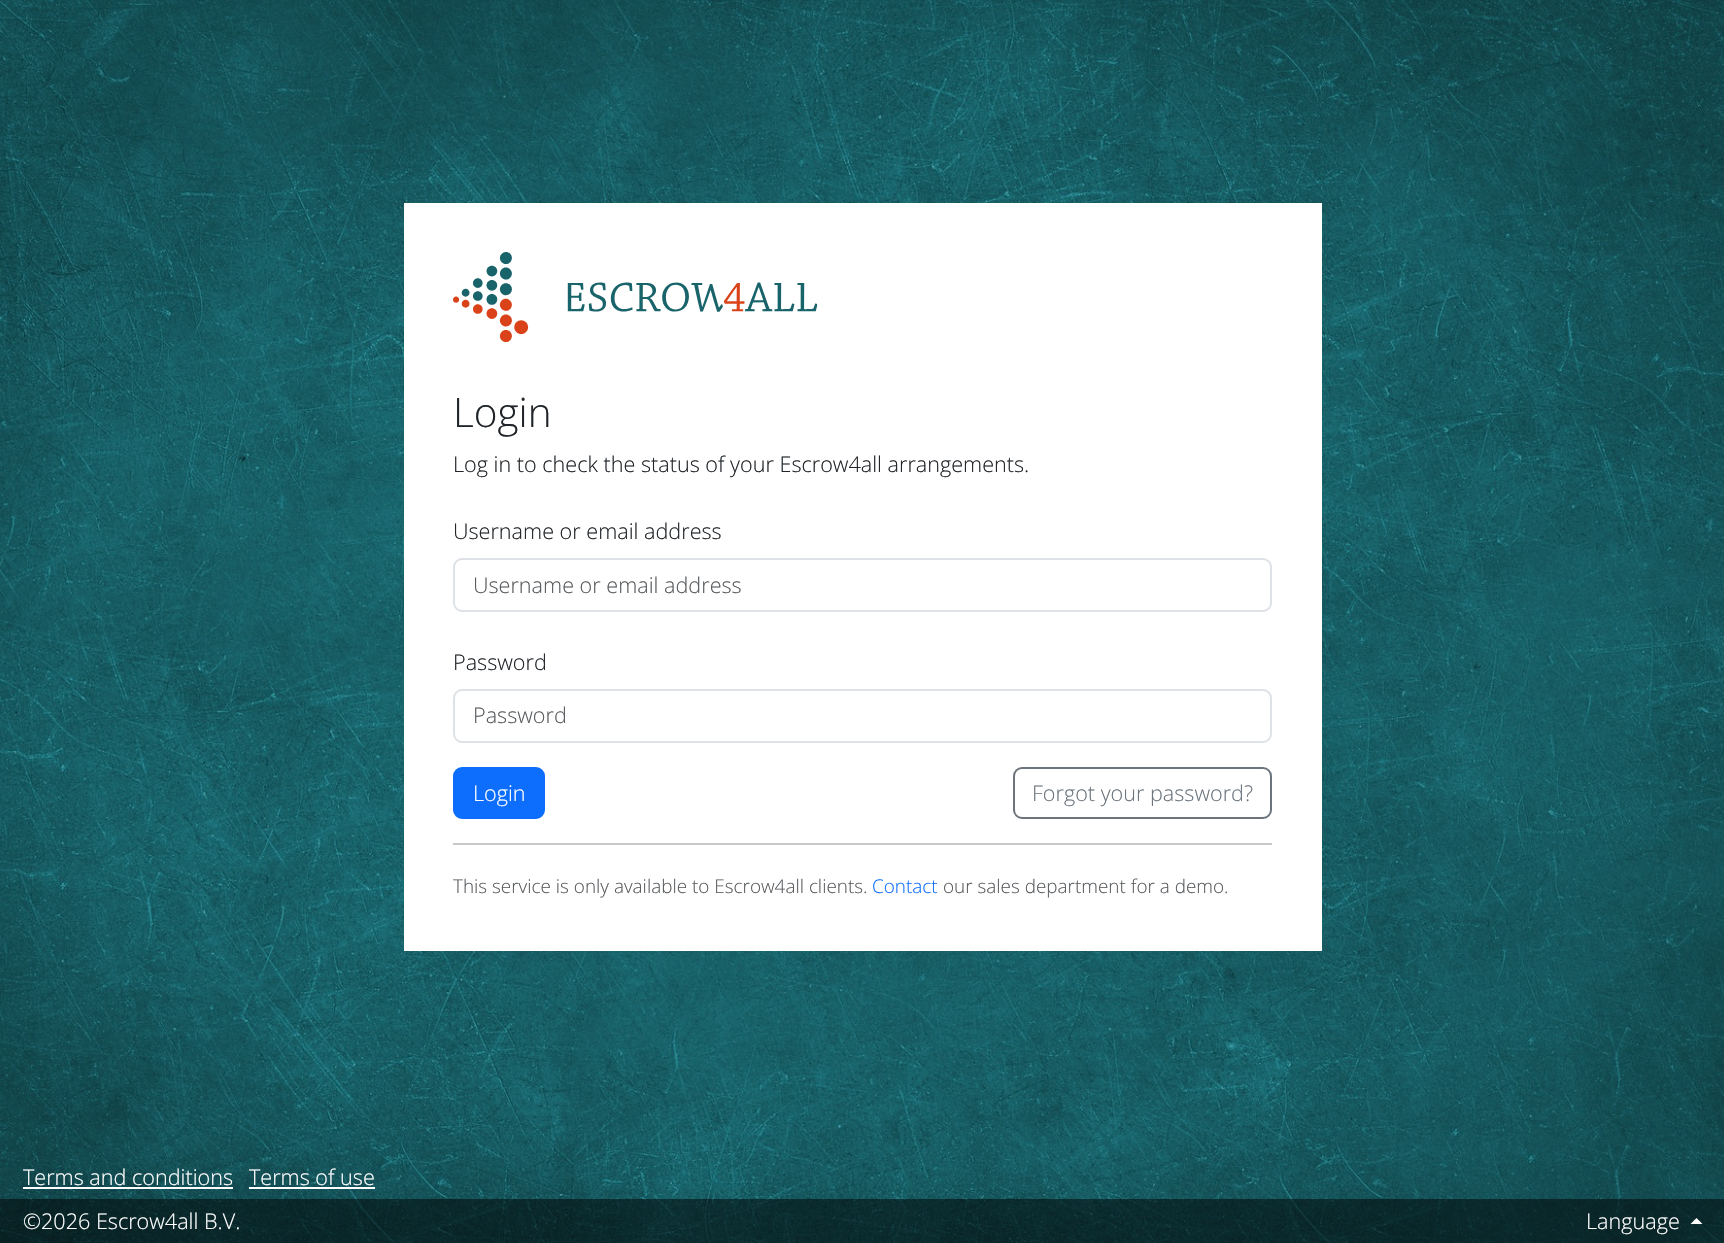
void draw(SkCanvas* canvas) {
  SkPaint paint;
  paint.setAntiAlias(true);
  auto face = [&](const char* family, int weight, float size, bool italic = false) {
    SkFontStyle style(weight, SkFontStyle::kNormal_Width,
      italic ? SkFontStyle::kItalic_Slant : SkFontStyle::kUpright_Slant);
    SkFont result(fontMgr->matchFamilyStyle(family, style), size);
    result.setSubpixel(true);
    return result;
  };
  auto paste = [&](const char* path, float x, float y, float w, float h) {
    auto image = SkImages::DeferredFromEncodedData(SkData::MakeFromFileName(path));
    canvas->drawImageRect(image, SkRect::MakeXYWH(x, y, w, h), SkSamplingOptions());
  };
  auto shape = [&](const char* data, bool evenOdd = false) {
    SkPath result = *SkParsePath::FromSVGString(data);
    if (evenOdd) result.setFillType(SkPathFillType::kEvenOdd);
    return result;
  };
  canvas->clear(0xffffffff);
  paste("img/1.png", 0, 0, 1724, 1243);
  paint.setColor(0xffffffff);
  canvas->drawRect(SkRect::MakeXYWH(404, 203, 918, 748), paint);
  paste("img/2.png", 453, 252, 365, 90);
  paint.setStroke(true);
  paint.setStrokeWidth(2);
  paint.setColor(0xffdee2e6);
  canvas->drawRoundRect(SkRect::MakeXYWH(454, 559, 817, 52), 8, 8, paint);
  canvas->drawRoundRect(SkRect::MakeXYWH(454, 690, 817, 52), 8, 8, paint);
  paint.setStroke(false);
  paint.setColor(0xff0d6efd);
  canvas->drawRoundRect(SkRect::MakeXYWH(454, 768, 90, 50), 8, 8, paint);
  paint.setStroke(true);
  canvas->drawRoundRect(SkRect::MakeXYWH(454, 768, 90, 50), 8, 8, paint);
  paint.setColor(0xff6c757d);
  canvas->drawRoundRect(SkRect::MakeXYWH(1014, 768, 257, 50), 8, 8, paint);
  paint.setStroke(false);
  {
    const struct { float x, y, w, h; SkColor color; } items[] = {
      {453, 843, 819, 2, 0xffc8c9ca},
      {23, 1187, 210, 2, 0xffffffff},
      {249, 1187, 126, 2, 0xffffffff},
      {0, 1199, 1724, 44, 0x80000000},
    };
    for (auto [x, y, w, h, color] : items) {
      paint.setColor(color);
      canvas->drawRect(SkRect::MakeXYWH(x, y, w, h), paint);
    }
  }
  paint.setColor(0xffffffff);
  canvas->drawPath(shape("M1702.5 1224H1690.5L1696.5 1218Z"), paint);
  auto f0 = face("Open Sans", 300, 40.5f);
  paint.setColor(0xff212529);
  canvas->drawString("Login", 453, 427, f0, paint);
  auto f1 = face("Open Sans", 300, 21.6f);
  canvas->drawString("Log in to check the status of your Escrow4all arrangements.", 453, 472, f1, paint);
  canvas->drawString("Username or email address", 453, 539, f1, paint);
  paint.setColor(0xff595c5f);
  canvas->drawString("Username or email address", 473, 593, f1, paint);
  paint.setColor(0xff212529);
  canvas->drawString("Password", 453, 670, f1, paint);
  paint.setColor(0xff595c5f);
  canvas->drawString("Password", 473, 723, f1, paint);
  paint.setColor(0xffffffff);
  canvas->drawString("Login", 473, 801, f1, paint);
  paint.setColor(0xff6c757d);
  canvas->drawString("Forgot your password?", 1032, 801, f1, paint);
  auto f2 = face("Open Sans", 300, 18.9f);
  paint.setColor(0xff595c5f);
  canvas->drawString("This service is only available to Escrow4all clients.", 453, 893, f2, paint);
  paint.setColor(0xff0d6efd);
  canvas->drawString("Contact", 872, 893, f2, paint);
  paint.setColor(0xff595c5f);
  canvas->drawString("our sales department for a demo.", 943, 893, f2, paint);
  paint.setColor(0xffffffff);
  {
    const struct { const char* s; float x, y; } items[] = {
      {"Terms and conditions", 23, 1185},
      {"Terms of use", 249, 1185},
      {"©2026 Escrow4all B.V.", 23, 1229},
      {"Language", 1586, 1229},
    };
    for (auto [s, x, y] : items) {
      canvas->drawString(s, x, y, f1, paint);
    }
  }
}
